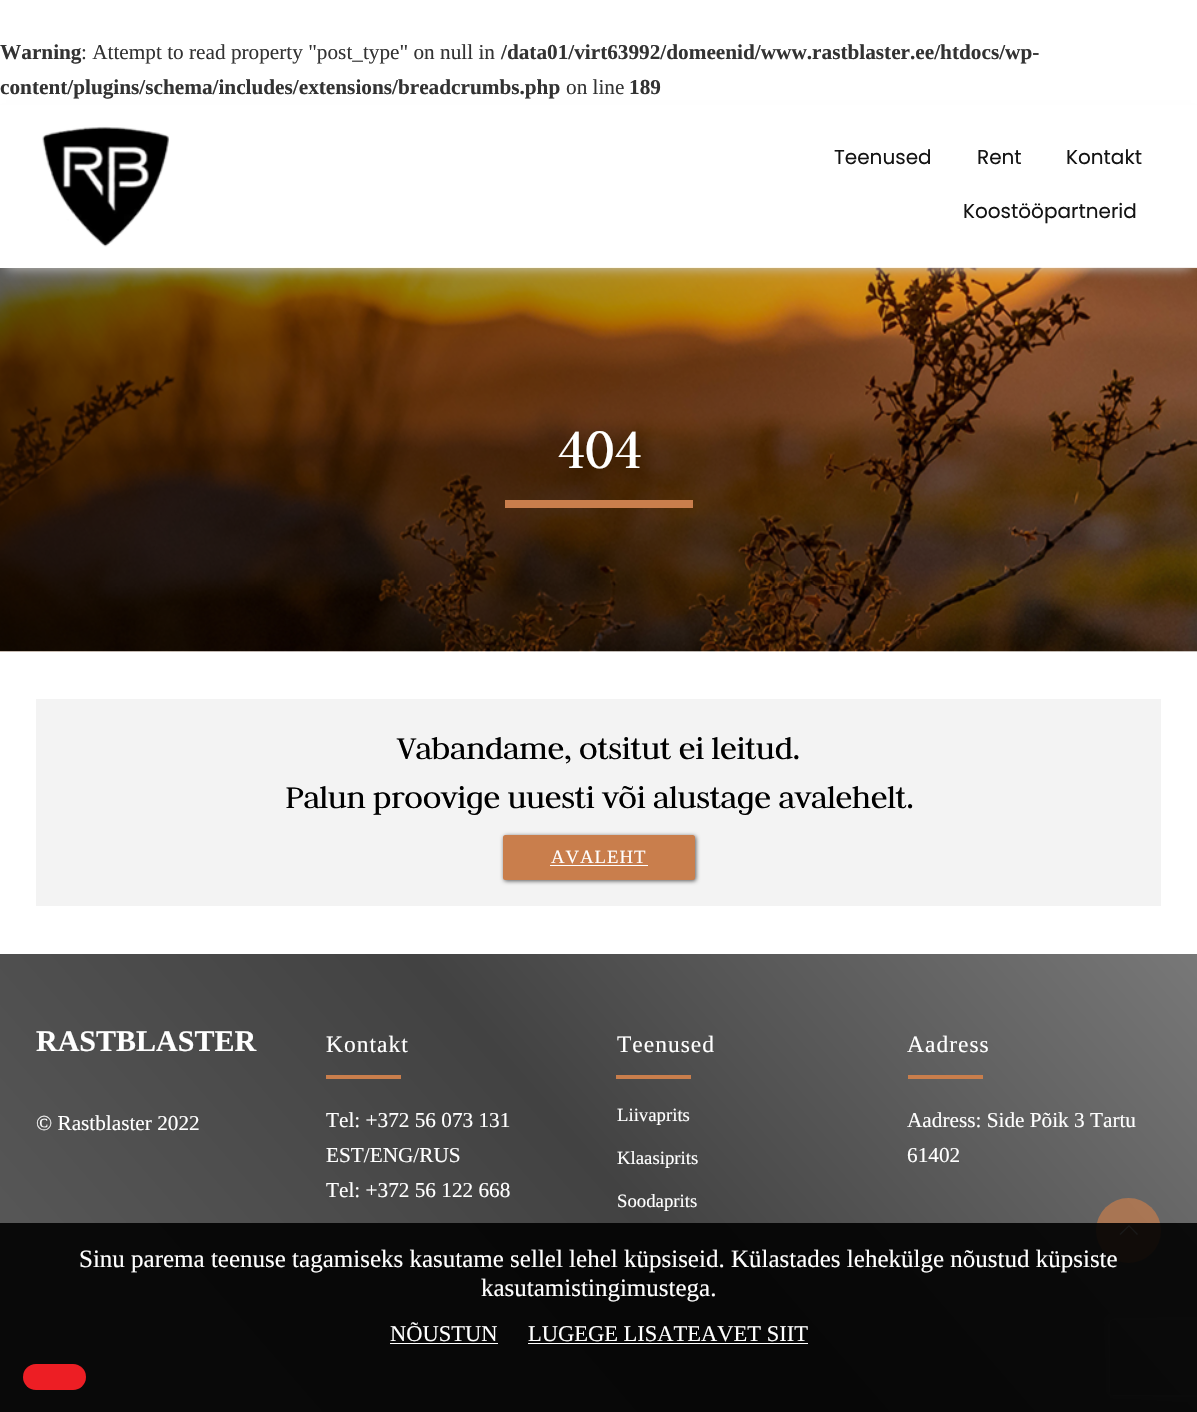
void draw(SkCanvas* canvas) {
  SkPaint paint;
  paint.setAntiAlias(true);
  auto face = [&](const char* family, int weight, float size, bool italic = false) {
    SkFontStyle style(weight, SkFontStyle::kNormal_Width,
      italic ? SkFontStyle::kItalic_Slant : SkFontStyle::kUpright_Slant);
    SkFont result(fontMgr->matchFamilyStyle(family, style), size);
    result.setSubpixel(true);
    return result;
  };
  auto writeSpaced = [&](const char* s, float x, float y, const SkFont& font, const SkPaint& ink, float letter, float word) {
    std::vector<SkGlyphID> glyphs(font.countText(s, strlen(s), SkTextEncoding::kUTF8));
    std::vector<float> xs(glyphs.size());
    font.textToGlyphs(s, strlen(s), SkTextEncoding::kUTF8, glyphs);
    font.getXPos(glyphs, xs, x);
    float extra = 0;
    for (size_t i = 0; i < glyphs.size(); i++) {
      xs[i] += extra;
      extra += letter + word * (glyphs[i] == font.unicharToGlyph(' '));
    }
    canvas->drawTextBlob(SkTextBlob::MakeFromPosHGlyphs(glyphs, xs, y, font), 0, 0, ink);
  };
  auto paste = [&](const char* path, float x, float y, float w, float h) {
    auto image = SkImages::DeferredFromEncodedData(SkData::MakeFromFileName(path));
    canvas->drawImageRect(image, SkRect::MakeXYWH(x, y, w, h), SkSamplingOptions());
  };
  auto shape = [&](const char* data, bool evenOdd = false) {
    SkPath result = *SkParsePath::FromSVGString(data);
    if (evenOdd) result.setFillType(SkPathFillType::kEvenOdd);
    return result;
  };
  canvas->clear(0xffffffff);
  paste("img/2.png", 0, 267, 1197, 385);
  canvas->save();
  canvas->clipPath(shape("M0 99H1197V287H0ZM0 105H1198V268H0Z", true), true);
  paint.setColor(0xffc7c7c7);
  paint.setMaskFilter(SkMaskFilter::MakeBlur(kNormal_SkBlurStyle, 6));
  canvas->drawRect(SkRect::MakeXYWH(6, 118, 1185, 150), paint);
  paint.setMaskFilter(nullptr);
  canvas->restore();
  paint.setColor(0xe6ffffff);
  canvas->drawRect(SkRect::MakeXYWH(0, 267, 1197, 1), paint);
  paste("img/1.png", 42, 126, 128, 121);
  paint.setColor(0xffc97e4c);
  canvas->drawRect(SkRect::MakeXYWH(505, 500, 188, 8), paint);
  paint.setColor(0xfff3f3f3);
  canvas->drawRect(SkRect::MakeXYWH(36, 699, 1125, 207), paint);
  paint.setColor(0xff595959);
  paint.setMaskFilter(SkMaskFilter::MakeBlur(kNormal_SkBlurStyle, 2));
  canvas->drawRoundRect(SkRect::MakeXYWH(504, 836, 192, 45), 2.5f, 2.5f, paint);
  paint.setMaskFilter(nullptr);
  paint.setColor(0xffc97e4c);
  canvas->drawRoundRect(SkRect::MakeXYWH(504.5f, 836.5f, 189, 42), 1, 1, paint);
  paint.setStroke(true);
  paint.setStrokeWidth(3);
  canvas->drawRoundRect(SkRect::MakeXYWH(504.5f, 836.5f, 189, 42), 1, 1, paint);
  paint.setStroke(false);
  paint.setColor(0xffffffff);
  canvas->drawRect(SkRect::MakeXYWH(550, 865, 98, 1), paint);
  {
    const SkColor colors[] = {0xff5c5c5c, 0xff424242, 0xff787878};
    const float stops[] = {0, 0.51f, 1};
    const SkPoint ends[] = {{142, 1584}, {1055, 790}};
    paint.setShader(SkGradientShader::MakeLinear(ends, colors, stops, 3, SkTileMode::kClamp));
    paint.setAlpha(255);
  }
  canvas->drawRect(SkRect::MakeXYWH(0, 954, 1197, 458), paint);
  paint.setShader(nullptr);
  {
    const struct { float x, y, w, h; SkColor color; } items[] = {
      {326, 1075, 75, 4, 0xffc97e4c},
      {616, 1075, 75, 4, 0xffc97e4c},
      {908, 1075, 75, 4, 0xffc97e4c},
    };
    for (auto [x, y, w, h, color] : items) {
      paint.setColor(color);
      canvas->drawRect(SkRect::MakeXYWH(x, y, w, h), paint);
    }
  }
  paint.setColor(0xabc97d4a);
  canvas->drawCircle(1128.5f, 1230.5f, 32.5f, paint);
  paint.setColor(0xffffffff);
  canvas->drawPath(shape("M1138 1234L1129 1225L1119.5 1234L1120.5 1235L1129 1226.5L1137 1235Z"), paint);
  canvas->save();
  canvas->clipPath(shape("M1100 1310H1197V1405H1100ZM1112.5 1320H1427.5C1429 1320 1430 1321 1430 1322.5V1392.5C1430 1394 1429 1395 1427.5 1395H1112.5C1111 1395 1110 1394 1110 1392.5V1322.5C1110 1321 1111 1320 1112.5 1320Z", true), true);
  paint.setColor(0xff808080);
  paint.setMaskFilter(SkMaskFilter::MakeBlur(kNormal_SkBlurStyle, 3));
  canvas->drawRoundRect(SkRect::MakeXYWH(1110, 1320, 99, 75), 2.5f, 2.5f, paint);
  paint.setMaskFilter(nullptr);
  canvas->restore();
  {
    const struct { float x, y, w, h; SkColor color; } items[] = {
      {0, 1223, 1197, 189, 0xe6000000},
      {390, 1343, 108, 1, 0xffffffff},
      {528, 1343, 280, 1, 0xffffffff},
    };
    for (auto [x, y, w, h, color] : items) {
      paint.setColor(color);
      canvas->drawRect(SkRect::MakeXYWH(x, y, w, h), paint);
    }
  }
  paint.setColor(0xffed1e24);
  canvas->drawRoundRect(SkRect::MakeXYWH(23, 1364, 63, 26), 13, 13, paint);
  auto f0 = face("Liberation Serif", 700, 21.25f);
  paint.setColor(0xff333333);
  canvas->drawString("Warning", 0, 59, f0, paint);
  auto f1 = face("Liberation Serif", 400, 21.25f);
  canvas->drawString(": Attempt to read property \"post_type\" on null in", 81, 59, f1, paint);
  canvas->drawString("/data01/virt63992/domeenid/www.rastblaster.ee/htdocs/wp-", 501, 59, f0, paint);
  canvas->drawString("content/plugins/schema/includes/extensions/breadcrumbs.php", 0, 94, f0, paint);
  canvas->drawString("on line", 566, 94, f1, paint);
  canvas->drawString("189", 629, 94, f0, paint);
  auto f2 = face("Poppins", 400, 20);
  paint.setColor(0xff141414);
  {
    const struct { const char* s; float x, y; } items[] = {
      {"Teenused", 834, 164},
      {"Rent", 977, 164},
      {"Kontakt", 1066, 164},
      {"Koostööpartnerid", 963, 218},
    };
    for (auto [s, x, y] : items) {
      canvas->drawString(s, x, y, f2, paint);
    }
  }
  auto f3 = face("Judson", 400, 62);
  paint.setColor(0xffffffff);
  writeSpaced("404", 556, 468, f3, paint, -2, 0);
  auto f4 = face("Judson", 400, 35);
  paint.setColor(0xff000000);
  writeSpaced("Vabandame, otsitut ei leitud.", 397, 759, f4, paint, -0.7f, 0);
  writeSpaced("Palun proovige uuesti või alustage avalehelt.", 285, 808, f4, paint, -0.7f, 0);
  auto f5 = face("Liberation Serif", 400, 18.75f);
  paint.setColor(0xffffffff);
  writeSpaced("AVALEHT", 551, 863, f5, paint, 1, 0);
  auto f6 = face("Liberation Serif", 700, 30);
  canvas->drawString("RASTBLASTER", 36, 1051, f6, paint);
  canvas->drawString("© Rastblaster 2022", 36, 1130, f1, paint);
  auto f7 = face("Liberation Serif", 400, 23.5f);
  writeSpaced("Kontakt", 326, 1052, f7, paint, 1, 0);
  {
    const struct { const char* s; float x, y; } items[] = {
      {"Tel: +372 56 073 131", 326, 1127},
      {"EST/ENG/RUS", 326, 1162},
      {"Tel: +372 56 122 668", 326, 1197},
    };
    for (auto [s, x, y] : items) {
      canvas->drawString(s, x, y, f1, paint);
    }
  }
  writeSpaced("Teenused", 617, 1052, f7, paint, 1, 0);
  {
    const struct { const char* s; float x, y; } items[] = {
      {"Liivaprits", 617, 1121},
      {"Klaasiprits", 617, 1164},
      {"Soodaprits", 617, 1207},
    };
    for (auto [s, x, y] : items) {
      canvas->drawString(s, x, y, f5, paint);
    }
  }
  writeSpaced("Aadress", 907, 1052, f7, paint, 1, 0);
  canvas->drawString("Aadress: Side Põik 3 Tartu", 907, 1127, f1, paint);
  canvas->drawString("61402", 907, 1162, f1, paint);
  auto f8 = face("Liberation Serif", 400, 25);
  canvas->drawString("Sinu parema teenuse tagamiseks kasutame sellel lehel küpsiseid. Külastades lehekülge nõustud küpsiste", 79, 1267, f8, paint);
  canvas->drawString("kasutamistingimustega.", 481, 1296, f8, paint);
  auto f9 = face("Liberation Serif", 400, 22.5f);
  canvas->drawString("NÕUSTUN", 390, 1341, f9, paint);
  canvas->drawString("LUGEGE LISATEAVET SIIT", 528, 1341, f9, paint);
}
